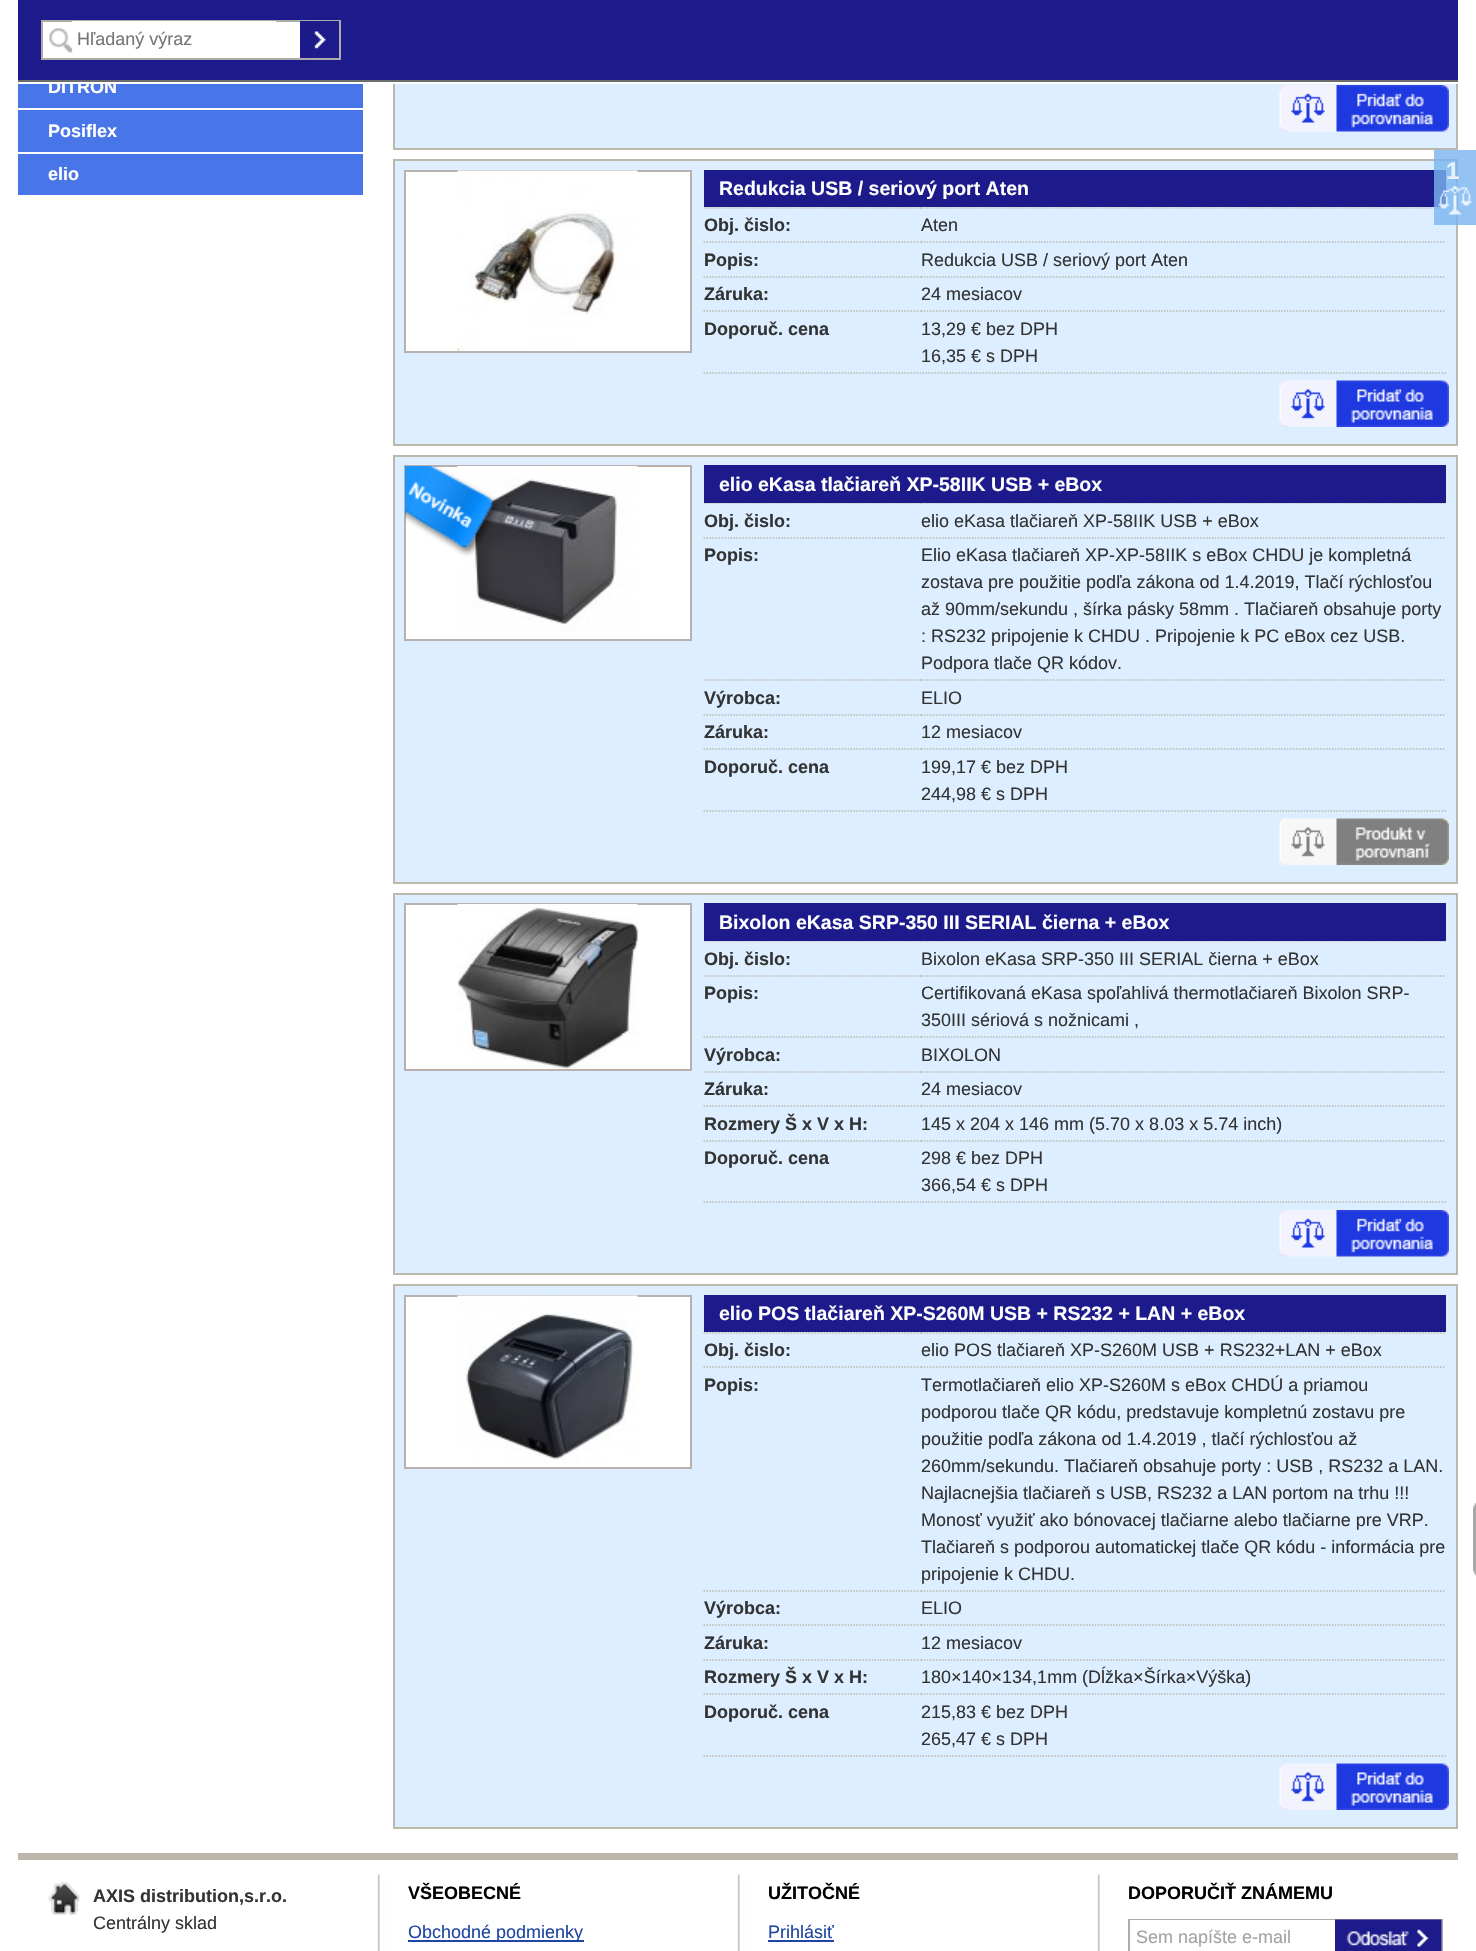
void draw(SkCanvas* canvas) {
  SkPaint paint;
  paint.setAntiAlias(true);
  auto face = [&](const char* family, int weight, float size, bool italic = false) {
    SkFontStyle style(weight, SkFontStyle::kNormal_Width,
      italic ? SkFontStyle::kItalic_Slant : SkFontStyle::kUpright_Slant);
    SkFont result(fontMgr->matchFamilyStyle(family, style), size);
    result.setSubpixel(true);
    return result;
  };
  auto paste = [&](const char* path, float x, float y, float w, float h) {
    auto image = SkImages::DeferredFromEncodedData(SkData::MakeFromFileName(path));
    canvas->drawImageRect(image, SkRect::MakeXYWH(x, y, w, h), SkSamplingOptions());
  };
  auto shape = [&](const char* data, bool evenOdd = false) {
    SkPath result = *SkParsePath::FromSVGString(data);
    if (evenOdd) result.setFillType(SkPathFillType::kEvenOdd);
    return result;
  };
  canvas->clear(0xffffffff);
  paint.setColor(0xffdceeff);
  canvas->drawRect(SkRect::MakeXYWH(395, 84, 1061, 64), paint);
  paint.setStroke(true);
  paint.setStrokeWidth(2);
  paint.setColor(0xffbcb8ac);
  canvas->drawRect(SkRect::MakeXYWH(394, -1, 1063, 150), paint);
  paint.setStroke(false);
  {
    const struct { float x, y, w, h; SkColor color; } items[] = {
      {393, 81, 1065, 3, 0xffffffff},
      {18, 0, 1440, 80, 0xff1d1b8c},
      {43, 22, 257, 36, 0xffffffff},
    };
    for (auto [x, y, w, h, color] : items) {
      paint.setColor(color);
      canvas->drawRect(SkRect::MakeXYWH(x, y, w, h), paint);
    }
  }
  paste("img/1.png", 49, 28, 24, 25);
  paint.setStroke(true);
  paint.setColor(0xffacacac);
  canvas->drawRect(SkRect::MakeXYWH(42, 21, 298, 38), paint);
  paint.setStroke(false);
  paint.setColor(0xffffffff);
  canvas->drawRect(SkRect::MakeXYWH(72, 21, 204, 29), paint);
  paste("img/2.png", 300, 21, 39, 37);
  {
    const struct { float x, y, w, h; SkColor color; } items[] = {
      {18, 84, 345, 111, 0xff4875e7},
      {18, 108, 345, 2, 0xffffffff},
      {18, 152, 345, 2, 0xffffffff},
    };
    for (auto [x, y, w, h, color] : items) {
      paint.setColor(color);
      canvas->drawRect(SkRect::MakeXYWH(x, y, w, h), paint);
    }
  }
  paste("img/3.png", 1279, 85, 170, 47);
  paint.setColor(0xffdceeff);
  canvas->drawRect(SkRect::MakeXYWH(394, 160, 1063, 285), paint);
  paint.setStroke(true);
  paint.setColor(0xffbcb8ac);
  canvas->drawRect(SkRect::MakeXYWH(394, 160, 1063, 285), paint);
  paint.setStroke(false);
  paint.setColor(0xffffffff);
  canvas->drawRect(SkRect::MakeXYWH(405, 171, 286, 181), paint);
  paint.setStroke(true);
  paint.setColor(0xffbab1ac);
  canvas->drawRect(SkRect::MakeXYWH(405, 171, 286, 181), paint);
  paste("img/4.png", 457, 170, 181, 181);
  paint.setStroke(false);
  paint.setColor(0xff1d1b8c);
  canvas->drawRect(SkRect::MakeXYWH(704, 170, 742, 37), paint);
  paint.setStroke(true);
  paint.setStrokeWidth(1.5f);
  paint.setColor(0xffbcb8ac);
  paint.setPathEffect(SkDashPathEffect::Make({{1.5f, 1.5f}}, 0));
  canvas->drawPath(shape("M703.5 373H1446"), paint);
  paint.setPathEffect(nullptr);
  paint.setPathEffect(SkDashPathEffect::Make({{1.5f, 1.5f}}, 0));
  canvas->drawPath(shape("M703.5 208H921"), paint);
  paint.setPathEffect(nullptr);
  paint.setPathEffect(SkDashPathEffect::Make({{1.5f, 1.5f}}, 0));
  canvas->drawPath(shape("M921 208H1446"), paint);
  paint.setPathEffect(nullptr);
  paint.setPathEffect(SkDashPathEffect::Make({{1.5f, 1.5f}}, 0));
  canvas->drawPath(shape("M703.5 242H921"), paint);
  paint.setPathEffect(nullptr);
  paint.setPathEffect(SkDashPathEffect::Make({{1.5f, 1.5f}}, 0));
  canvas->drawPath(shape("M921 242H1446"), paint);
  paint.setPathEffect(nullptr);
  paint.setPathEffect(SkDashPathEffect::Make({{1.5f, 1.5f}}, 0));
  canvas->drawPath(shape("M703.5 277H921"), paint);
  paint.setPathEffect(nullptr);
  paint.setPathEffect(SkDashPathEffect::Make({{1.5f, 1.5f}}, 0));
  canvas->drawPath(shape("M921 277H1446"), paint);
  paint.setPathEffect(nullptr);
  paint.setPathEffect(SkDashPathEffect::Make({{1.5f, 1.5f}}, 0));
  canvas->drawPath(shape("M703.5 311H921"), paint);
  paint.setPathEffect(nullptr);
  paint.setPathEffect(SkDashPathEffect::Make({{1.5f, 1.5f}}, 0));
  canvas->drawPath(shape("M921 311H1446"), paint);
  paint.setPathEffect(nullptr);
  paste("img/5.png", 1279, 380, 170, 47);
  paint.setStroke(false);
  paint.setColor(0xffdceeff);
  canvas->drawRect(SkRect::MakeXYWH(394, 456, 1063, 427), paint);
  paint.setStroke(true);
  paint.setStrokeWidth(2);
  paint.setColor(0xffbcb8ac);
  canvas->drawRect(SkRect::MakeXYWH(394, 456, 1063, 427), paint);
  paint.setStroke(false);
  paint.setColor(0xffffffff);
  canvas->drawRect(SkRect::MakeXYWH(405, 466, 286, 174), paint);
  paint.setStroke(true);
  paint.setColor(0xffbab1ac);
  canvas->drawRect(SkRect::MakeXYWH(405, 466, 286, 174), paint);
  paste("img/7.png", 457, 466, 181, 166);
  paste("img/6.png", 405, 466, 93, 90);
  paint.setStroke(false);
  paint.setColor(0xff1d1b8c);
  canvas->drawRect(SkRect::MakeXYWH(704, 465, 742, 38), paint);
  paint.setStroke(true);
  paint.setStrokeWidth(1.5f);
  paint.setColor(0xffbcb8ac);
  paint.setPathEffect(SkDashPathEffect::Make({{1.5f, 1.5f}}, 0));
  canvas->drawPath(shape("M703.5 811H1446"), paint);
  paint.setPathEffect(nullptr);
  canvas->save();
  canvas->clipRect(SkRect::MakeXYWH(704, 503, 742, 307));
  paint.setPathEffect(SkDashPathEffect::Make({{1.5f, 1.5f}}, 0));
  canvas->drawPath(shape("M703.5 503H921"), paint);
  paint.setPathEffect(nullptr);
  paint.setPathEffect(SkDashPathEffect::Make({{1.5f, 1.5f}}, 0));
  canvas->drawPath(shape("M921 503H1446"), paint);
  paint.setPathEffect(nullptr);
  canvas->restore();
  paint.setPathEffect(SkDashPathEffect::Make({{1.5f, 1.5f}}, 0));
  canvas->drawPath(shape("M703.5 538H921"), paint);
  paint.setPathEffect(nullptr);
  paint.setPathEffect(SkDashPathEffect::Make({{1.5f, 1.5f}}, 0));
  canvas->drawPath(shape("M921 538H1446"), paint);
  paint.setPathEffect(nullptr);
  paint.setPathEffect(SkDashPathEffect::Make({{1.5f, 1.5f}}, 0));
  canvas->drawPath(shape("M703.5 680H921"), paint);
  paint.setPathEffect(nullptr);
  paint.setPathEffect(SkDashPathEffect::Make({{1.5f, 1.5f}}, 0));
  canvas->drawPath(shape("M921 680H1446"), paint);
  paint.setPathEffect(nullptr);
  paint.setPathEffect(SkDashPathEffect::Make({{1.5f, 1.5f}}, 0));
  canvas->drawPath(shape("M703.5 715H921"), paint);
  paint.setPathEffect(nullptr);
  paint.setPathEffect(SkDashPathEffect::Make({{1.5f, 1.5f}}, 0));
  canvas->drawPath(shape("M921 715H1446"), paint);
  paint.setPathEffect(nullptr);
  paint.setPathEffect(SkDashPathEffect::Make({{1.5f, 1.5f}}, 0));
  canvas->drawPath(shape("M703.5 749H921"), paint);
  paint.setPathEffect(nullptr);
  paint.setPathEffect(SkDashPathEffect::Make({{1.5f, 1.5f}}, 0));
  canvas->drawPath(shape("M921 749H1446"), paint);
  paint.setPathEffect(nullptr);
  paste("img/8.png", 1279, 818, 170, 47);
  paint.setStroke(false);
  paint.setColor(0xffdceeff);
  canvas->drawRect(SkRect::MakeXYWH(394, 894, 1063, 380), paint);
  paint.setStroke(true);
  paint.setStrokeWidth(2);
  paint.setColor(0xffbcb8ac);
  canvas->drawRect(SkRect::MakeXYWH(394, 894, 1063, 380), paint);
  paint.setStroke(false);
  paint.setColor(0xffffffff);
  canvas->drawRect(SkRect::MakeXYWH(405, 904, 286, 166), paint);
  paint.setStroke(true);
  paint.setColor(0xffbab1ac);
  canvas->drawRect(SkRect::MakeXYWH(405, 904, 286, 166), paint);
  paste("img/9.png", 457, 904, 181, 165);
  paint.setStroke(false);
  paint.setColor(0xff1d1b8c);
  canvas->drawRect(SkRect::MakeXYWH(704, 903, 742, 38), paint);
  paint.setStroke(true);
  paint.setStrokeWidth(1.5f);
  paint.setColor(0xffbcb8ac);
  paint.setPathEffect(SkDashPathEffect::Make({{1.5f, 1.5f}}, 0));
  canvas->drawPath(shape("M703.5 1202H1446"), paint);
  paint.setPathEffect(nullptr);
  canvas->save();
  canvas->clipRect(SkRect::MakeXYWH(704, 941, 742, 261));
  paint.setPathEffect(SkDashPathEffect::Make({{1.5f, 1.5f}}, 0));
  canvas->drawPath(shape("M703.5 941H921"), paint);
  paint.setPathEffect(nullptr);
  paint.setPathEffect(SkDashPathEffect::Make({{1.5f, 1.5f}}, 0));
  canvas->drawPath(shape("M921 941H1446"), paint);
  paint.setPathEffect(nullptr);
  canvas->restore();
  paint.setPathEffect(SkDashPathEffect::Make({{1.5f, 1.5f}}, 0));
  canvas->drawPath(shape("M703.5 976H921"), paint);
  paint.setPathEffect(nullptr);
  paint.setPathEffect(SkDashPathEffect::Make({{1.5f, 1.5f}}, 0));
  canvas->drawPath(shape("M921 976H1446"), paint);
  paint.setPathEffect(nullptr);
  paint.setPathEffect(SkDashPathEffect::Make({{1.5f, 1.5f}}, 0));
  canvas->drawPath(shape("M703.5 1037H921"), paint);
  paint.setPathEffect(nullptr);
  paint.setPathEffect(SkDashPathEffect::Make({{1.5f, 1.5f}}, 0));
  canvas->drawPath(shape("M921 1037H1446"), paint);
  paint.setPathEffect(nullptr);
  paint.setPathEffect(SkDashPathEffect::Make({{1.5f, 1.5f}}, 0));
  canvas->drawPath(shape("M703.5 1072H921"), paint);
  paint.setPathEffect(nullptr);
  paint.setPathEffect(SkDashPathEffect::Make({{1.5f, 1.5f}}, 0));
  canvas->drawPath(shape("M921 1072H1446"), paint);
  paint.setPathEffect(nullptr);
  paint.setPathEffect(SkDashPathEffect::Make({{1.5f, 1.5f}}, 0));
  canvas->drawPath(shape("M703.5 1106H921"), paint);
  paint.setPathEffect(nullptr);
  paint.setPathEffect(SkDashPathEffect::Make({{1.5f, 1.5f}}, 0));
  canvas->drawPath(shape("M921 1106H1446"), paint);
  paint.setPathEffect(nullptr);
  paint.setPathEffect(SkDashPathEffect::Make({{1.5f, 1.5f}}, 0));
  canvas->drawPath(shape("M703.5 1141H921"), paint);
  paint.setPathEffect(nullptr);
  paint.setPathEffect(SkDashPathEffect::Make({{1.5f, 1.5f}}, 0));
  canvas->drawPath(shape("M921 1141H1446"), paint);
  paint.setPathEffect(nullptr);
  paste("img/3.png", 1279, 1210, 170, 47);
  paint.setStroke(false);
  paint.setColor(0xffdceeff);
  canvas->drawRect(SkRect::MakeXYWH(394, 1285, 1063, 543), paint);
  paint.setStroke(true);
  paint.setStrokeWidth(2);
  paint.setColor(0xffbcb8ac);
  canvas->drawRect(SkRect::MakeXYWH(394, 1285, 1063, 543), paint);
  paint.setStroke(false);
  paint.setColor(0xffffffff);
  canvas->drawRect(SkRect::MakeXYWH(405, 1296, 286, 172), paint);
  paint.setStroke(true);
  paint.setColor(0xffbab1ac);
  canvas->drawRect(SkRect::MakeXYWH(405, 1296, 286, 172), paint);
  paste("img/10.png", 457, 1295, 181, 168);
  paint.setStroke(false);
  paint.setColor(0xff1d1b8c);
  canvas->drawRect(SkRect::MakeXYWH(704, 1295, 742, 37), paint);
  paint.setStroke(true);
  paint.setStrokeWidth(1.5f);
  paint.setColor(0xffbcb8ac);
  paint.setPathEffect(SkDashPathEffect::Make({{1.5f, 1.5f}}, 0));
  canvas->drawPath(shape("M703.5 1756H1446"), paint);
  paint.setPathEffect(nullptr);
  paint.setPathEffect(SkDashPathEffect::Make({{1.5f, 1.5f}}, 0));
  canvas->drawPath(shape("M703.5 1333H921"), paint);
  paint.setPathEffect(nullptr);
  paint.setPathEffect(SkDashPathEffect::Make({{1.5f, 1.5f}}, 0));
  canvas->drawPath(shape("M921 1333H1446"), paint);
  paint.setPathEffect(nullptr);
  paint.setPathEffect(SkDashPathEffect::Make({{1.5f, 1.5f}}, 0));
  canvas->drawPath(shape("M703.5 1367H921"), paint);
  paint.setPathEffect(nullptr);
  paint.setPathEffect(SkDashPathEffect::Make({{1.5f, 1.5f}}, 0));
  canvas->drawPath(shape("M921 1367H1446"), paint);
  paint.setPathEffect(nullptr);
  paint.setPathEffect(SkDashPathEffect::Make({{1.5f, 1.5f}}, 0));
  canvas->drawPath(shape("M703.5 1591H921"), paint);
  paint.setPathEffect(nullptr);
  paint.setPathEffect(SkDashPathEffect::Make({{1.5f, 1.5f}}, 0));
  canvas->drawPath(shape("M921 1591H1446"), paint);
  paint.setPathEffect(nullptr);
  paint.setPathEffect(SkDashPathEffect::Make({{1.5f, 1.5f}}, 0));
  canvas->drawPath(shape("M703.5 1625H921"), paint);
  paint.setPathEffect(nullptr);
  paint.setPathEffect(SkDashPathEffect::Make({{1.5f, 1.5f}}, 0));
  canvas->drawPath(shape("M921 1625H1446"), paint);
  paint.setPathEffect(nullptr);
  paint.setPathEffect(SkDashPathEffect::Make({{1.5f, 1.5f}}, 0));
  canvas->drawPath(shape("M703.5 1660H921"), paint);
  paint.setPathEffect(nullptr);
  paint.setPathEffect(SkDashPathEffect::Make({{1.5f, 1.5f}}, 0));
  canvas->drawPath(shape("M921 1660H1446"), paint);
  paint.setPathEffect(nullptr);
  paint.setPathEffect(SkDashPathEffect::Make({{1.5f, 1.5f}}, 0));
  canvas->drawPath(shape("M703.5 1694H921"), paint);
  paint.setPathEffect(nullptr);
  paint.setPathEffect(SkDashPathEffect::Make({{1.5f, 1.5f}}, 0));
  canvas->drawPath(shape("M921 1694H1446"), paint);
  paint.setPathEffect(nullptr);
  paste("img/5.png", 1279, 1763, 170, 47);
  paste("img/11.png", 1473, 1502, 3, 74);
  paint.setStroke(false);
  canvas->drawRect(SkRect::MakeXYWH(18, 1853, 1440, 7), paint);
  paste("img/12.png", 377, 1874, 723, 77);
  paste("img/13.png", 48, 1882, 32, 33);
  paint.setColor(0xff2045a4);
  canvas->drawRect(SkRect::MakeXYWH(408, 1940, 176, 2), paint);
  canvas->drawRect(SkRect::MakeXYWH(768, 1940, 66, 2), paint);
  paint.setStroke(true);
  paint.setStrokeWidth(2);
  paint.setColor(0xffacacac);
  canvas->drawRect(SkRect::MakeXYWH(1129, 1920, 313, 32), paint);
  paint.setStroke(false);
  paint.setColor(0xffffffff);
  canvas->drawRect(SkRect::MakeXYWH(1130, 1920, 205, 1), paint);
  paste("img/14.png", 1335, 1919, 107, 32);
  paint.setColor(0xcc79b4f0);
  canvas->drawRect(SkRect::MakeXYWH(1434, 150, 42, 75), paint);
  paste("img/15.png", 1438, 185, 34, 30);
  auto f0 = face("Liberation Sans", 400, 18);
  paint.setColor(0xff757575);
  canvas->drawString("Hľadaný výraz", 77, 45, f0, paint);
  auto f1 = face("Liberation Sans", 700, 18);
  paint.setColor(0xffffffff);
  canvas->drawString("DITRON", 48, 93, f1, paint);
  paint.setColor(0xff6b6d6e);
  canvas->drawRect(SkRect::MakeXYWH(18, 80, 1440, 2), paint);
  paint.setColor(0xffffffff);
  canvas->drawString("Posiflex", 48, 137, f1, paint);
  canvas->drawString("elio", 48, 180, f1, paint);
  auto f2 = face("Liberation Sans", 700, 19.5f);
  canvas->drawString("Redukcia USB / seriový port Aten", 719, 195, f2, paint);
  paint.setColor(0xff333333);
  canvas->drawString("Obj. čislo:", 704, 231, f1, paint);
  canvas->drawString("Aten", 921, 231, f0, paint);
  canvas->drawString("Popis:", 704, 266, f1, paint);
  canvas->drawString("Redukcia USB / seriový port Aten", 921, 266, f0, paint);
  canvas->drawString("Záruka:", 704, 300, f1, paint);
  canvas->drawString("24 mesiacov", 921, 300, f0, paint);
  canvas->drawString("Doporuč. cena", 704, 335, f1, paint);
  canvas->drawString("13,29 € bez DPH", 921, 335, f0, paint);
  canvas->drawString("16,35 € s DPH", 921, 362, f0, paint);
  paint.setColor(0xffffffff);
  canvas->drawString("elio eKasa tlačiareň XP-58IIK USB + eBox", 719, 491, f2, paint);
  paint.setColor(0xff333333);
  canvas->drawString("Obj. čislo:", 704, 527, f1, paint);
  canvas->drawString("elio eKasa tlačiareň XP-58IIK USB + eBox", 921, 527, f0, paint);
  canvas->drawString("Popis:", 704, 561, f1, paint);
  {
    const struct { const char* s; float x, y; } items[] = {
      {"Elio eKasa tlačiareň XP-XP-58IIK s eBox CHDU je kompletná", 921, 561},
      {"zostava pre použitie podľa zákona od 1.4.2019, Tlačí rýchlosťou", 921, 588},
      {"až 90mm/sekundu , šírka pásky 58mm . Tlačiareň obsahuje porty", 921, 615},
      {": RS232 pripojenie k CHDU . Pripojenie k PC eBox cez USB.", 921, 642},
      {"Podpora tlače QR kódov.", 921, 669},
    };
    for (auto [s, x, y] : items) {
      canvas->drawString(s, x, y, f0, paint);
    }
  }
  canvas->drawString("Výrobca:", 704, 704, f1, paint);
  canvas->drawString("ELIO", 921, 704, f0, paint);
  canvas->drawString("Záruka:", 704, 738, f1, paint);
  canvas->drawString("12 mesiacov", 921, 738, f0, paint);
  canvas->drawString("Doporuč. cena", 704, 773, f1, paint);
  canvas->drawString("199,17 € bez DPH", 921, 773, f0, paint);
  canvas->drawString("244,98 € s DPH", 921, 800, f0, paint);
  paint.setColor(0xffffffff);
  canvas->drawString("Bixolon eKasa SRP-350 III SERIAL čierna + eBox", 719, 929, f2, paint);
  paint.setColor(0xff333333);
  canvas->drawString("Obj. čislo:", 704, 965, f1, paint);
  canvas->drawString("Bixolon eKasa SRP-350 III SERIAL čierna + eBox", 921, 965, f0, paint);
  canvas->drawString("Popis:", 704, 999, f1, paint);
  canvas->drawString("Certifikovaná eKasa spoľahlivá thermotlačiareň Bixolon SRP-", 921, 999, f0, paint);
  canvas->drawString("350III sériová s nožnicami ,", 921, 1026, f0, paint);
  canvas->drawString("Výrobca:", 704, 1061, f1, paint);
  canvas->drawString("BIXOLON", 921, 1061, f0, paint);
  canvas->drawString("Záruka:", 704, 1095, f1, paint);
  canvas->drawString("24 mesiacov", 921, 1095, f0, paint);
  canvas->drawString("Rozmery Š x V x H:", 704, 1130, f1, paint);
  canvas->drawString("145 x 204 x 146 mm (5.70 x 8.03 x 5.74 inch)", 921, 1130, f0, paint);
  canvas->drawString("Doporuč. cena", 704, 1164, f1, paint);
  canvas->drawString("298 € bez DPH", 921, 1164, f0, paint);
  canvas->drawString("366,54 € s DPH", 921, 1191, f0, paint);
  paint.setColor(0xffffffff);
  canvas->drawString("elio POS tlačiareň XP-S260M USB + RS232 + LAN + eBox", 719, 1320, f2, paint);
  paint.setColor(0xff333333);
  canvas->drawString("Obj. čislo:", 704, 1356, f1, paint);
  canvas->drawString("elio POS tlačiareň XP-S260M USB + RS232+LAN + eBox", 921, 1356, f0, paint);
  canvas->drawString("Popis:", 704, 1391, f1, paint);
  {
    const struct { const char* s; float x, y; } items[] = {
      {"Termotlačiareň elio XP-S260M s eBox CHDÚ a priamou", 921, 1391},
      {"podporou tlače QR kódu, predstavuje kompletnú zostavu pre", 921, 1418},
      {"použitie podľa zákona od 1.4.2019 , tlačí rýchlosťou až", 921, 1445},
      {"260mm/sekundu. Tlačiareň obsahuje porty : USB , RS232 a LAN.", 921, 1472},
      {"Najlacnejšia tlačiareň s USB, RS232 a LAN portom na trhu !!!", 921, 1499},
      {"Monosť využiť ako bónovacej tlačiarne alebo tlačiarne pre VRP.", 921, 1526},
      {"Tlačiareň s podporou automatickej tlače QR kódu - informácia pre", 921, 1553},
      {"pripojenie k CHDU.", 921, 1580},
    };
    for (auto [s, x, y] : items) {
      canvas->drawString(s, x, y, f0, paint);
    }
  }
  canvas->drawString("Výrobca:", 704, 1614, f1, paint);
  canvas->drawString("ELIO", 921, 1614, f0, paint);
  canvas->drawString("Záruka:", 704, 1649, f1, paint);
  canvas->drawString("12 mesiacov", 921, 1649, f0, paint);
  canvas->drawString("Rozmery Š x V x H:", 704, 1683, f1, paint);
  canvas->drawString("180×140×134,1mm (Dĺžka×Šírka×Výška)", 921, 1683, f0, paint);
  canvas->drawString("Doporuč. cena", 704, 1718, f1, paint);
  canvas->drawString("215,83 € bez DPH", 921, 1718, f0, paint);
  canvas->drawString("265,47 € s DPH", 921, 1745, f0, paint);
  canvas->drawString("AXIS distribution,s.r.o.", 93, 1902, f1, paint);
  canvas->drawString("Centrálny sklad", 93, 1929, f0, paint);
  paint.setColor(0xff000000);
  canvas->drawString("VŠEOBECNÉ", 408, 1899, f1, paint);
  paint.setColor(0xff2045a4);
  canvas->drawString("Obchodné podmienky", 408, 1938, f0, paint);
  paint.setColor(0xff000000);
  canvas->drawString("UŽITOČNÉ", 768, 1899, f1, paint);
  paint.setColor(0xff2045a4);
  canvas->drawString("Prihlásiť", 768, 1938, f0, paint);
  paint.setColor(0xff000000);
  canvas->drawString("DOPORUČIŤ ZNÁMEMU", 1128, 1899, f1, paint);
  paint.setColor(0xffa1a4a6);
  canvas->drawString("Sem napíšte e-mail", 1136, 1943, f0, paint);
  auto f3 = face("Liberation Sans", 700, 24);
  paint.setColor(0xffe8f2fc);
  canvas->drawString("1", 1446, 179, f3, paint);
}
